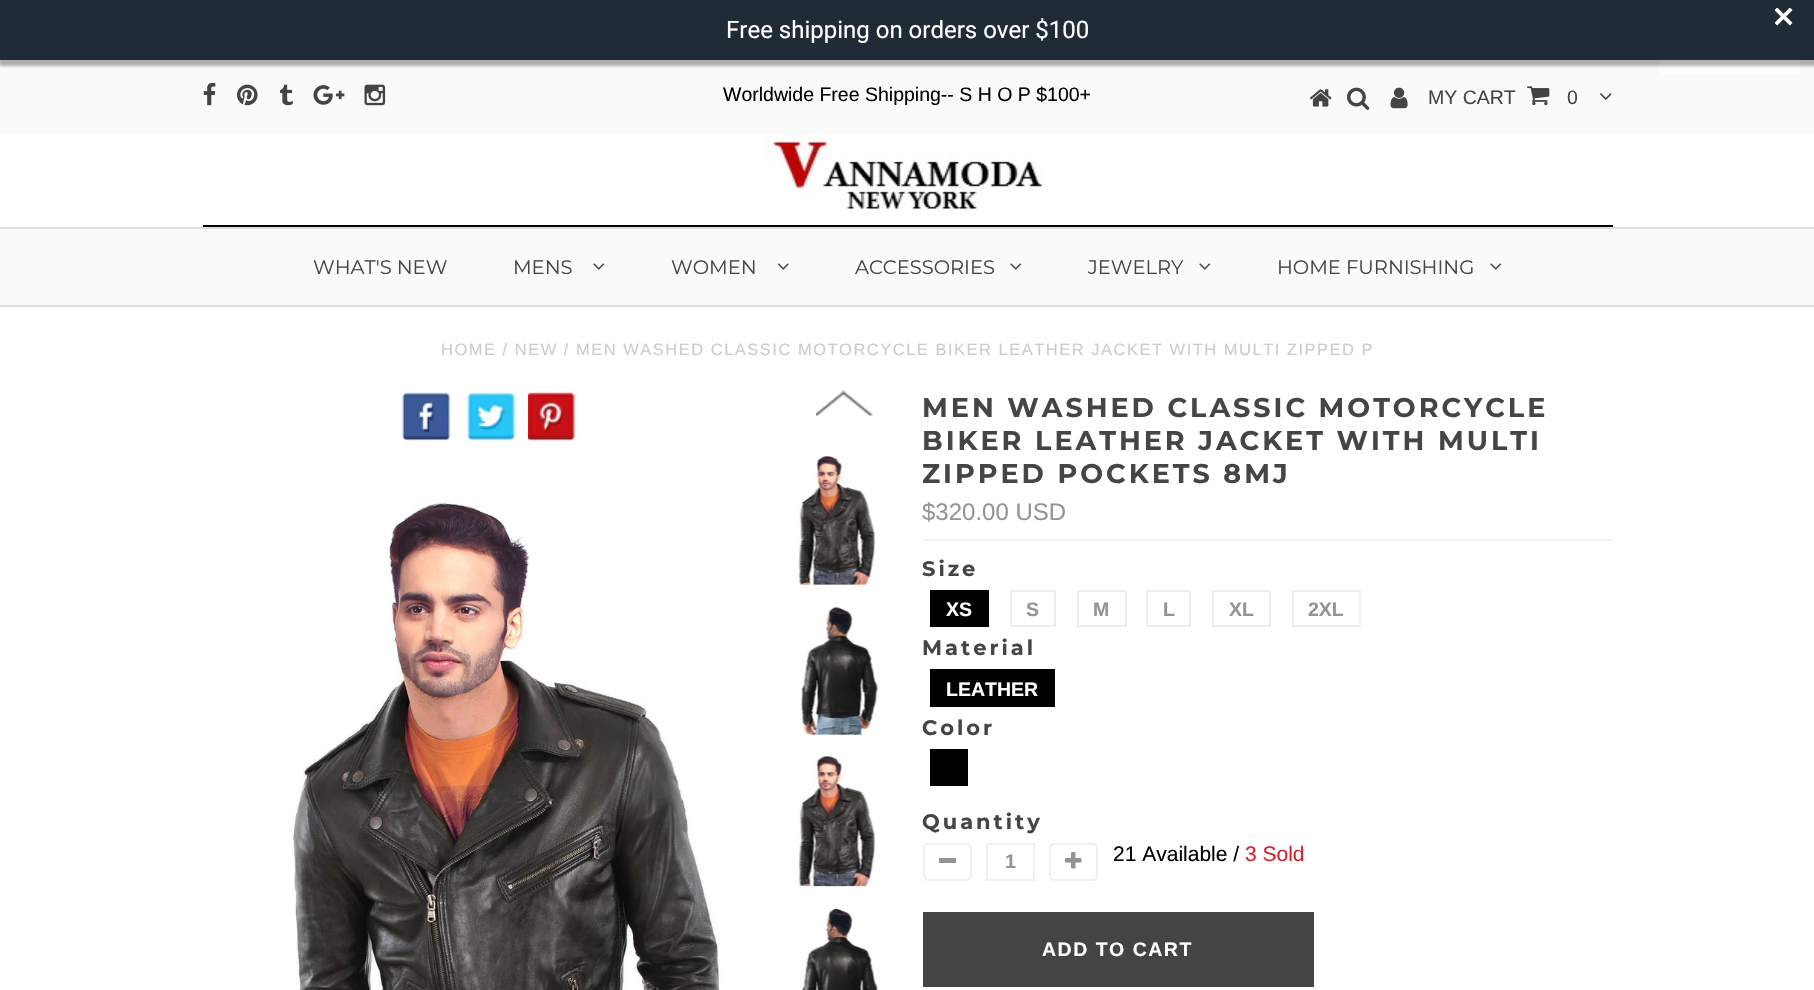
void draw(SkCanvas* canvas) {
  SkPaint paint;
  paint.setAntiAlias(true);
  auto face = [&](const char* family, int weight, float size, bool italic = false) {
    SkFontStyle style(weight, SkFontStyle::kNormal_Width,
      italic ? SkFontStyle::kItalic_Slant : SkFontStyle::kUpright_Slant);
    SkFont result(fontMgr->matchFamilyStyle(family, style), size);
    result.setSubpixel(true);
    return result;
  };
  auto writeSpaced = [&](const char* s, float x, float y, const SkFont& font, const SkPaint& ink, float letter, float word) {
    std::vector<SkGlyphID> glyphs(font.countText(s, strlen(s), SkTextEncoding::kUTF8));
    std::vector<float> xs(glyphs.size());
    font.textToGlyphs(s, strlen(s), SkTextEncoding::kUTF8, glyphs);
    font.getXPos(glyphs, xs, x);
    float extra = 0;
    for (size_t i = 0; i < glyphs.size(); i++) {
      xs[i] += extra;
      extra += letter + word * (glyphs[i] == font.unicharToGlyph(' '));
    }
    canvas->drawTextBlob(SkTextBlob::MakeFromPosHGlyphs(glyphs, xs, y, font), 0, 0, ink);
  };
  auto paste = [&](const char* path, float x, float y, float w, float h) {
    auto image = SkImages::DeferredFromEncodedData(SkData::MakeFromFileName(path));
    canvas->drawImageRect(image, SkRect::MakeXYWH(x, y, w, h), SkSamplingOptions());
  };
  canvas->clear(0xffffffff);
  paint.setColor(0xfffafafa);
  canvas->drawRect(SkRect::MakeXYWH(0, 60, 1814, 74), paint);
  paint.setColor(0xffffffff);
  canvas->drawRect(SkRect::MakeXYWH(1659, 60, 141, 15), paint);
  paint.setColor(0x4d000000);
  paint.setMaskFilter(SkMaskFilter::MakeBlur(kNormal_SkBlurStyle, 1.5f));
  canvas->drawRect(SkRect::MakeXYWH(-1, 3, 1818, 63), paint);
  paint.setMaskFilter(nullptr);
  paint.setColor(0xff212b35);
  canvas->drawRect(SkRect::MakeXYWH(0, 0, 1814, 60), paint);
  paste("img/1.png", 1775, 8, 18, 18);
  paste("img/2.png", 203, 82, 13, 24);
  paste("img/3.png", 237, 84, 21, 22);
  paste("img/4.png", 280, 84, 13, 22);
  paste("img/5.png", 313, 85, 32, 20);
  paste("img/6.png", 364, 84, 22, 22);
  paste("img/7.png", 1309, 89, 23, 18);
  paste("img/8.png", 1347, 87, 23, 23);
  paste("img/9.png", 1390, 87, 18, 22);
  paste("img/10.png", 1527, 86, 23, 20);
  paste("img/11.png", 1600, 93, 12, 7);
  paint.setColor(0xff000000);
  canvas->drawRect(SkRect::MakeXYWH(203, 225, 1410, 2), paint);
  paste("img/12.png", 766, 134, 277, 77);
  {
    const struct { float x, y, w, h; SkColor color; } items[] = {
      {0, 229, 1814, 76, 0xfffafafa},
      {0, 227, 1814, 2, 0xffdddddd},
      {0, 305, 1814, 2, 0xffdddddd},
    };
    for (auto [x, y, w, h, color] : items) {
      paint.setColor(color);
      canvas->drawRect(SkRect::MakeXYWH(x, y, w, h), paint);
    }
  }
  paste("img/13.png", 593, 263, 12, 7);
  paste("img/14.png", 777, 263, 12, 7);
  paste("img/13.png", 1010, 263, 12, 7);
  paste("img/13.png", 1199, 263, 12, 7);
  paste("img/13.png", 1490, 263, 12, 7);
  paste("img/15.png", 399, 391, 52, 53);
  paste("img/16.png", 465, 391, 51, 51);
  paste("img/17.png", 528, 391, 52, 51);
  paste("img/18.png", 292, 501, 429, 489);
  paste("img/19.png", 816, 390, 57, 26);
  paste("img/20.png", 798, 456, 78, 129);
  paste("img/21.png", 801, 606, 78, 129);
  paste("img/22.png", 798, 756, 78, 131);
  paste("img/23.png", 802, 908, 77, 82);
  paint.setColor(0xfff0f0f0);
  canvas->drawRect(SkRect::MakeXYWH(923, 539, 690, 2), paint);
  paint.setColor(0xff000000);
  canvas->drawRect(SkRect::MakeXYWH(930, 590, 59, 37), paint);
  paint.setStroke(true);
  paint.setStrokeWidth(2);
  paint.setColor(0xffeeeeee);
  canvas->drawRect(SkRect::MakeXYWH(1011, 591, 44, 35), paint);
  canvas->drawRect(SkRect::MakeXYWH(1078, 591, 48, 35), paint);
  canvas->drawRect(SkRect::MakeXYWH(1147, 591, 43, 35), paint);
  canvas->drawRect(SkRect::MakeXYWH(1213, 591, 57, 35), paint);
  canvas->drawRect(SkRect::MakeXYWH(1293, 591, 67, 35), paint);
  paint.setStroke(false);
  paint.setColor(0xff000000);
  canvas->drawRect(SkRect::MakeXYWH(930, 669, 125, 38), paint);
  canvas->drawRect(SkRect::MakeXYWH(930, 749, 38, 37), paint);
  paint.setStroke(true);
  paint.setColor(0xfff0f0f0);
  canvas->drawRoundRect(SkRect::MakeXYWH(924, 844, 47, 36), 4, 4, paint);
  paint.setStroke(false);
  paint.setColor(0xff949494);
  canvas->drawRect(SkRect::MakeXYWH(939, 858, 17, 5), paint);
  paint.setStroke(true);
  paint.setColor(0xfff0f0f0);
  canvas->drawRect(SkRect::MakeXYWH(987, 844, 47, 36), paint);
  canvas->drawRoundRect(SkRect::MakeXYWH(1050, 844, 47, 36), 4, 4, paint);
  paste("img/24.png", 1065, 852, 17, 17);
  paint.setStroke(false);
  paint.setColor(0xff444444);
  canvas->drawRect(SkRect::MakeXYWH(923, 912, 391, 75), paint);
  auto f0 = face("Roboto", 400, 24);
  paint.setColor(0xffffffff);
  canvas->drawString("Free shipping on orders over $100", 726, 38, f0, paint);
  auto f1 = face("Liberation Sans", 400, 19.5f);
  paint.setColor(0xff000000);
  canvas->drawString("Worldwide Free Shipping-- S H O P $100+", 723, 101, f1, paint);
  paint.setColor(0xff454545);
  canvas->drawString("MY CART", 1428, 104, f1, paint);
  canvas->drawString("0", 1567, 104, f1, paint);
  auto f2 = face("Montserrat", 400, 19.5f);
  {
    const struct { const char* s; float x, y; } items[] = {
      {"WHAT'S NEW", 313, 274},
      {"MENS", 513, 274},
      {"WOMEN", 671, 274},
      {"ACCESSORIES", 855, 274},
      {"JEWELRY", 1088, 274},
      {"HOME FURNISHING", 1277, 274},
    };
    for (auto [s, x, y] : items) {
      canvas->drawString(s, x, y, f2, paint);
    }
  }
  auto f3 = face("Liberation Sans", 400, 16.5f);
  paint.setColor(0xffcccccc);
  writeSpaced("HOME / NEW / MEN WASHED CLASSIC MOTORCYCLE BIKER LEATHER JACKET WITH MULTI ZIPPED P", 441, 355, f3, paint, 1.5f, 0);
  auto f4 = face("Montserrat", 700, 27);
  paint.setColor(0xff454545);
  {
    const struct { const char* s; float x, y; } items[] = {
      {"MEN WASHED CLASSIC MOTORCYCLE", 922, 417},
      {"BIKER LEATHER JACKET WITH MULTI", 922, 450},
      {"ZIPPED POCKETS 8MJ", 922, 483},
    };
    for (auto [s, x, y] : items) {
      writeSpaced(s, x, y, f4, paint, 3, 0);
    }
  }
  auto f5 = face("Liberation Sans", 400, 24);
  paint.setColor(0xff949494);
  canvas->drawString("$320.00 USD", 922, 520, f5, paint);
  auto f6 = face("Montserrat", 700, 21);
  paint.setColor(0xff454545);
  writeSpaced("Size", 922, 576, f6, paint, 3, 0);
  auto f7 = face("Liberation Sans", 700, 19.5f);
  paint.setColor(0xffffffff);
  canvas->drawString("XS", 946, 616, f7, paint);
  paint.setColor(0xff949494);
  {
    const struct { const char* s; float x, y; } items[] = {
      {"S", 1026, 616},
      {"M", 1093, 616},
      {"L", 1163, 616},
      {"XL", 1229, 616},
      {"2XL", 1308, 616},
    };
    for (auto [s, x, y] : items) {
      canvas->drawString(s, x, y, f7, paint);
    }
  }
  paint.setColor(0xff454545);
  writeSpaced("Material", 922, 655, f6, paint, 3, 0);
  paint.setColor(0xffffffff);
  canvas->drawString("LEATHER", 946, 696, f7, paint);
  paint.setColor(0xff454545);
  writeSpaced("Color", 922, 735, f6, paint, 3, 0);
  writeSpaced("Quantity", 922, 829, f6, paint, 3, 0);
  paint.setColor(0xff949494);
  canvas->drawString("1", 1005, 868, f7, paint);
  auto f8 = face("Liberation Sans", 400, 21);
  paint.setColor(0xff000000);
  canvas->drawString("21 Available /", 1113, 861, f8, paint);
  paint.setColor(0xffdd1e31);
  canvas->drawString("3 Sold", 1245, 861, f8, paint);
  paint.setColor(0xffffffff);
  writeSpaced("ADD TO CART", 1042, 956, f7, paint, 1.5f, 0);
}
